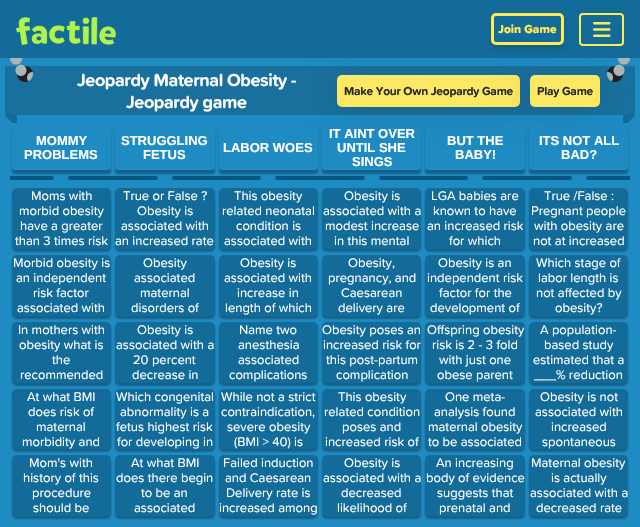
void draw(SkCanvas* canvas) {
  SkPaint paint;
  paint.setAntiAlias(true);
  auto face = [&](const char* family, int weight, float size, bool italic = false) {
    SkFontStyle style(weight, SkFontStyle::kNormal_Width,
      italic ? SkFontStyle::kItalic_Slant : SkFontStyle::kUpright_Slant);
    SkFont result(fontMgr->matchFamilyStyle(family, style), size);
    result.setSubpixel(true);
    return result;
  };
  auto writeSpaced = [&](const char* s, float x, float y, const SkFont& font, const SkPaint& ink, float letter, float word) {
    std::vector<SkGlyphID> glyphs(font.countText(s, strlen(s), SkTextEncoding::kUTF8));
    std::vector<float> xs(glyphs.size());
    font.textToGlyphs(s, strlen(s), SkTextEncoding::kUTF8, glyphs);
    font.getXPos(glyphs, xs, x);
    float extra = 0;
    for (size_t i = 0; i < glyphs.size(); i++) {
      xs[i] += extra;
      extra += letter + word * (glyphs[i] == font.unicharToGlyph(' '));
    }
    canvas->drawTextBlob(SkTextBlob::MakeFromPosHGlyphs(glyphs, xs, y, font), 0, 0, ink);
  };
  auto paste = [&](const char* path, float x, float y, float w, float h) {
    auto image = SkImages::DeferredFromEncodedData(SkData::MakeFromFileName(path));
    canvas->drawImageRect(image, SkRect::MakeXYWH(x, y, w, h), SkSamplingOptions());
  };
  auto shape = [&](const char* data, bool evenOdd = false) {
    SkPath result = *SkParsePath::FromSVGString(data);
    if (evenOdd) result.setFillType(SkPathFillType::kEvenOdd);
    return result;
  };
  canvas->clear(0xff1e8bc3);
  paint.setColor(0xff19709d);
  canvas->drawRect(SkRect::MakeXYWH(5, 66, 630, 49), paint);
  paint.setColor(0x1f000000);
  paint.setMaskFilter(SkMaskFilter::MakeBlur(kNormal_SkBlurStyle, 16.5f));
  canvas->drawRoundRect(SkRect::MakeXYWH(337, 78, 183, 32), 5, 5, paint);
  paint.setMaskFilter(nullptr);
  paste("img/4.png", 607, 58, 23, 24);
  paint.setColor(0xfffce862);
  canvas->drawRoundRect(SkRect::MakeXYWH(337, 75, 183, 32), 5, 5, paint);
  {
    const SkColor colors[] = {0xff1e8bc3, 0xff126b98};
    const float stops[] = {0.49f, 0.5f};
    const SkPoint ends[] = {{635, 127}, {623, 115}};
    paint.setShader(SkGradientShader::MakeLinear(ends, colors, stops, 2, SkTileMode::kClamp));
    paint.setAlpha(255);
  }
  canvas->drawRect(SkRect::MakeXYWH(623, 115, 12, 12), paint);
  paint.setShader(nullptr);
  paint.setColor(0xff1e8bc3);
  canvas->drawRect(SkRect::MakeXYWH(623, 123, 4, 4), paint);
  paint.setColor(0x1f000000);
  paint.setMaskFilter(SkMaskFilter::MakeBlur(kNormal_SkBlurStyle, 16.5f));
  canvas->drawRoundRect(SkRect::MakeXYWH(530, 78, 70, 32), 5, 5, paint);
  paint.setMaskFilter(nullptr);
  paint.setColor(0xff126b98);
  canvas->drawRect(SkRect::MakeXYWH(0, 0, 640, 58), paint);
  paste("img/1.png", 16, 17, 100, 28);
  canvas->save();
  canvas->clipPath(shape("M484 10H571V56H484ZM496 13H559C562 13 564 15 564 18V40C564 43 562 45 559 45H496C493 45 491 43 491 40V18C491 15 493 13 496 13Z", true), true);
  paint.setColor(0x1c000000);
  paint.setMaskFilter(SkMaskFilter::MakeBlur(kNormal_SkBlurStyle, 2));
  canvas->drawRoundRect(SkRect::MakeXYWH(491, 17, 73, 32), 5, 5, paint);
  paint.setMaskFilter(nullptr);
  canvas->restore();
  paint.setStroke(true);
  paint.setStrokeWidth(3);
  paint.setColor(0xffffe956);
  canvas->drawRoundRect(SkRect::MakeXYWH(492.5f, 14.5f, 70, 29), 3.5f, 3.5f, paint);
  paint.setStrokeWidth(2);
  paint.setColor(0xfffbed56);
  canvas->drawRoundRect(SkRect::MakeXYWH(580, 14, 43, 31), 3, 3, paint);
  paste("img/2.png", 593, 22, 18, 15);
  paste("img/3.png", 10, 58, 23, 24);
  paint.setStroke(false);
  paint.setColor(0xfffce862);
  canvas->drawRoundRect(SkRect::MakeXYWH(530, 75, 70, 32), 5, 5, paint);
  {
    const SkColor colors[] = {0xff1e8bc3, 0xff126b98};
    const float stops[] = {0.49f, 0.5f};
    const SkPoint ends[] = {{5, 127}, {17, 115}};
    paint.setShader(SkGradientShader::MakeLinear(ends, colors, stops, 2, SkTileMode::kClamp));
    paint.setAlpha(255);
  }
  canvas->drawRect(SkRect::MakeXYWH(5, 115, 12, 12), paint);
  paint.setShader(nullptr);
  paint.setColor(0xff1e8bc3);
  canvas->drawRect(SkRect::MakeXYWH(13, 123, 4, 4), paint);
  paint.setColor(0xff055882);
  canvas->drawPath(shape("M10 176H52C53 176 54 177 54 178C54 179 53 180 52 180H10Z"), paint);
  canvas->save();
  canvas->clipPath(shape("M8 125H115V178H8ZM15 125H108C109.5 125 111 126.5 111 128V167C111 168.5 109.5 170 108 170H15C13.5 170 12 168.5 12 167V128C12 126.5 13.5 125 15 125Z", true), true);
  paint.setColor(0x4d000000);
  paint.setMaskFilter(SkMaskFilter::MakeBlur(kNormal_SkBlurStyle, 1));
  canvas->drawRoundRect(SkRect::MakeXYWH(12, 129, 99, 45), 3, 3, paint);
  paint.setMaskFilter(nullptr);
  canvas->restore();
  paint.setColor(0xff055882);
  canvas->drawPath(shape("M70 176H113V180H70C69 180 68 179 68 178C68 177 69 176 70 176Z"), paint);
  paint.setColor(0x4d000000);
  paint.setMaskFilter(SkMaskFilter::MakeBlur(kNormal_SkBlurStyle, 1));
  canvas->drawRoundRect(SkRect::MakeXYWH(12, 191, 99, 61), 5, 5, paint);
  paint.setMaskFilter(nullptr);
  paint.setColor(0xff126b98);
  canvas->drawRoundRect(SkRect::MakeXYWH(12, 188, 99, 61), 5, 5, paint);
  paint.setColor(0x4d000000);
  paint.setMaskFilter(SkMaskFilter::MakeBlur(kNormal_SkBlurStyle, 1));
  canvas->drawRoundRect(SkRect::MakeXYWH(12, 258, 99, 61), 5, 5, paint);
  paint.setMaskFilter(nullptr);
  paint.setColor(0xff126b98);
  canvas->drawRoundRect(SkRect::MakeXYWH(12, 255, 99, 61), 5, 5, paint);
  paint.setColor(0x4d000000);
  paint.setMaskFilter(SkMaskFilter::MakeBlur(kNormal_SkBlurStyle, 1));
  canvas->drawRoundRect(SkRect::MakeXYWH(12, 325, 99, 61), 5, 5, paint);
  paint.setMaskFilter(nullptr);
  paint.setColor(0xff126b98);
  canvas->drawRoundRect(SkRect::MakeXYWH(12, 322, 99, 61), 5, 5, paint);
  paint.setColor(0x4d000000);
  paint.setMaskFilter(SkMaskFilter::MakeBlur(kNormal_SkBlurStyle, 1));
  canvas->drawRoundRect(SkRect::MakeXYWH(12, 392, 99, 60), 5, 5, paint);
  paint.setMaskFilter(nullptr);
  paint.setColor(0xff126b98);
  canvas->drawRoundRect(SkRect::MakeXYWH(12, 389, 99, 60), 5, 5, paint);
  paint.setColor(0x4d000000);
  paint.setMaskFilter(SkMaskFilter::MakeBlur(kNormal_SkBlurStyle, 1));
  canvas->drawRoundRect(SkRect::MakeXYWH(12, 458, 99, 61), 5, 5, paint);
  paint.setMaskFilter(nullptr);
  paint.setColor(0xff126b98);
  canvas->drawRoundRect(SkRect::MakeXYWH(12, 455, 99, 61), 5, 5, paint);
  paint.setColor(0xff055882);
  canvas->drawPath(shape("M113 176H156C157 176 158 177 158 178C158 179 157 180 156 180H113Z"), paint);
  canvas->save();
  canvas->clipPath(shape("M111 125H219V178H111ZM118 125H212C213.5 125 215 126.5 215 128V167C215 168.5 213.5 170 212 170H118C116.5 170 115 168.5 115 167V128C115 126.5 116.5 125 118 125Z", true), true);
  paint.setColor(0x4d000000);
  paint.setMaskFilter(SkMaskFilter::MakeBlur(kNormal_SkBlurStyle, 1));
  canvas->drawRoundRect(SkRect::MakeXYWH(115, 129, 100, 45), 3, 3, paint);
  paint.setMaskFilter(nullptr);
  canvas->restore();
  paint.setColor(0xff055882);
  canvas->drawPath(shape("M174 176H217V180H174C173 180 172 179 172 178C172 177 173 176 174 176Z"), paint);
  paint.setColor(0x4d000000);
  paint.setMaskFilter(SkMaskFilter::MakeBlur(kNormal_SkBlurStyle, 1));
  canvas->drawRoundRect(SkRect::MakeXYWH(115, 191, 100, 61), 5, 5, paint);
  paint.setMaskFilter(nullptr);
  paint.setColor(0xff126b98);
  canvas->drawRoundRect(SkRect::MakeXYWH(115, 188, 100, 61), 5, 5, paint);
  paint.setColor(0x4d000000);
  paint.setMaskFilter(SkMaskFilter::MakeBlur(kNormal_SkBlurStyle, 1));
  canvas->drawRoundRect(SkRect::MakeXYWH(115, 258, 100, 61), 5, 5, paint);
  paint.setMaskFilter(nullptr);
  paint.setColor(0xff126b98);
  canvas->drawRoundRect(SkRect::MakeXYWH(115, 255, 100, 61), 5, 5, paint);
  paint.setColor(0x4d000000);
  paint.setMaskFilter(SkMaskFilter::MakeBlur(kNormal_SkBlurStyle, 1));
  canvas->drawRoundRect(SkRect::MakeXYWH(115, 325, 100, 61), 5, 5, paint);
  paint.setMaskFilter(nullptr);
  paint.setColor(0xff126b98);
  canvas->drawRoundRect(SkRect::MakeXYWH(115, 322, 100, 61), 5, 5, paint);
  paint.setColor(0x4d000000);
  paint.setMaskFilter(SkMaskFilter::MakeBlur(kNormal_SkBlurStyle, 1));
  canvas->drawRoundRect(SkRect::MakeXYWH(115, 392, 100, 60), 5, 5, paint);
  paint.setMaskFilter(nullptr);
  paint.setColor(0xff126b98);
  canvas->drawRoundRect(SkRect::MakeXYWH(115, 389, 100, 60), 5, 5, paint);
  paint.setColor(0x4d000000);
  paint.setMaskFilter(SkMaskFilter::MakeBlur(kNormal_SkBlurStyle, 1));
  canvas->drawRoundRect(SkRect::MakeXYWH(115, 458, 100, 61), 5, 5, paint);
  paint.setMaskFilter(nullptr);
  paint.setColor(0xff126b98);
  canvas->drawRoundRect(SkRect::MakeXYWH(115, 455, 100, 61), 5, 5, paint);
  paint.setColor(0xff055882);
  canvas->drawPath(shape("M217 176H259C260 176 261 177 261 178C261 179 260 180 259 180H217Z"), paint);
  canvas->save();
  canvas->clipPath(shape("M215 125H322V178H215ZM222 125H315C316.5 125 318 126.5 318 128V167C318 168.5 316.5 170 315 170H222C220.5 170 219 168.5 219 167V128C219 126.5 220.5 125 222 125Z", true), true);
  paint.setColor(0x4d000000);
  paint.setMaskFilter(SkMaskFilter::MakeBlur(kNormal_SkBlurStyle, 1));
  canvas->drawRoundRect(SkRect::MakeXYWH(219, 129, 99, 45), 3, 3, paint);
  paint.setMaskFilter(nullptr);
  canvas->restore();
  paint.setColor(0xff055882);
  canvas->drawPath(shape("M277 176H320V180H277C276 180 275 179 275 178C275 177 276 176 277 176Z"), paint);
  paint.setColor(0x4d000000);
  paint.setMaskFilter(SkMaskFilter::MakeBlur(kNormal_SkBlurStyle, 1));
  canvas->drawRoundRect(SkRect::MakeXYWH(219, 191, 99, 61), 5, 5, paint);
  paint.setMaskFilter(nullptr);
  paint.setColor(0xff126b98);
  canvas->drawRoundRect(SkRect::MakeXYWH(219, 188, 99, 61), 5, 5, paint);
  paint.setColor(0x4d000000);
  paint.setMaskFilter(SkMaskFilter::MakeBlur(kNormal_SkBlurStyle, 1));
  canvas->drawRoundRect(SkRect::MakeXYWH(219, 258, 99, 61), 5, 5, paint);
  paint.setMaskFilter(nullptr);
  paint.setColor(0xff126b98);
  canvas->drawRoundRect(SkRect::MakeXYWH(219, 255, 99, 61), 5, 5, paint);
  paint.setColor(0x4d000000);
  paint.setMaskFilter(SkMaskFilter::MakeBlur(kNormal_SkBlurStyle, 1));
  canvas->drawRoundRect(SkRect::MakeXYWH(219, 325, 99, 61), 5, 5, paint);
  paint.setMaskFilter(nullptr);
  paint.setColor(0xff126b98);
  canvas->drawRoundRect(SkRect::MakeXYWH(219, 322, 99, 61), 5, 5, paint);
  paint.setColor(0x4d000000);
  paint.setMaskFilter(SkMaskFilter::MakeBlur(kNormal_SkBlurStyle, 1));
  canvas->drawRoundRect(SkRect::MakeXYWH(219, 392, 99, 60), 5, 5, paint);
  paint.setMaskFilter(nullptr);
  paint.setColor(0xff126b98);
  canvas->drawRoundRect(SkRect::MakeXYWH(219, 389, 99, 60), 5, 5, paint);
  paint.setColor(0x4d000000);
  paint.setMaskFilter(SkMaskFilter::MakeBlur(kNormal_SkBlurStyle, 1));
  canvas->drawRoundRect(SkRect::MakeXYWH(219, 458, 99, 61), 5, 5, paint);
  paint.setMaskFilter(nullptr);
  paint.setColor(0xff126b98);
  canvas->drawRoundRect(SkRect::MakeXYWH(219, 455, 99, 61), 5, 5, paint);
  paint.setColor(0xff055882);
  canvas->drawPath(shape("M320 176H363C364 176 365 177 365 178C365 179 364 180 363 180H320Z"), paint);
  canvas->save();
  canvas->clipPath(shape("M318 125H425V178H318ZM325 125H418C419.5 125 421 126.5 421 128V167C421 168.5 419.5 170 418 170H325C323.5 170 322 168.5 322 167V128C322 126.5 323.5 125 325 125Z", true), true);
  paint.setColor(0x4d000000);
  paint.setMaskFilter(SkMaskFilter::MakeBlur(kNormal_SkBlurStyle, 1));
  canvas->drawRoundRect(SkRect::MakeXYWH(322, 129, 99, 45), 3, 3, paint);
  paint.setMaskFilter(nullptr);
  canvas->restore();
  paint.setColor(0xff055882);
  canvas->drawPath(shape("M381 176H423V180H381C380 180 379 179 379 178C379 177 380 176 381 176Z"), paint);
  paint.setColor(0x4d000000);
  paint.setMaskFilter(SkMaskFilter::MakeBlur(kNormal_SkBlurStyle, 1));
  canvas->drawRoundRect(SkRect::MakeXYWH(322, 191, 99, 61), 5, 5, paint);
  paint.setMaskFilter(nullptr);
  paint.setColor(0xff126b98);
  canvas->drawRoundRect(SkRect::MakeXYWH(322, 188, 99, 61), 5, 5, paint);
  paint.setColor(0x4d000000);
  paint.setMaskFilter(SkMaskFilter::MakeBlur(kNormal_SkBlurStyle, 1));
  canvas->drawRoundRect(SkRect::MakeXYWH(322, 258, 99, 61), 5, 5, paint);
  paint.setMaskFilter(nullptr);
  paint.setColor(0xff126b98);
  canvas->drawRoundRect(SkRect::MakeXYWH(322, 255, 99, 61), 5, 5, paint);
  paint.setColor(0x4d000000);
  paint.setMaskFilter(SkMaskFilter::MakeBlur(kNormal_SkBlurStyle, 1));
  canvas->drawRoundRect(SkRect::MakeXYWH(322, 325, 99, 61), 5, 5, paint);
  paint.setMaskFilter(nullptr);
  paint.setColor(0xff126b98);
  canvas->drawRoundRect(SkRect::MakeXYWH(322, 322, 99, 61), 5, 5, paint);
  paint.setColor(0x4d000000);
  paint.setMaskFilter(SkMaskFilter::MakeBlur(kNormal_SkBlurStyle, 1));
  canvas->drawRoundRect(SkRect::MakeXYWH(322, 392, 99, 60), 5, 5, paint);
  paint.setMaskFilter(nullptr);
  paint.setColor(0xff126b98);
  canvas->drawRoundRect(SkRect::MakeXYWH(322, 389, 99, 60), 5, 5, paint);
  paint.setColor(0x4d000000);
  paint.setMaskFilter(SkMaskFilter::MakeBlur(kNormal_SkBlurStyle, 1));
  canvas->drawRoundRect(SkRect::MakeXYWH(322, 458, 99, 61), 5, 5, paint);
  paint.setMaskFilter(nullptr);
  paint.setColor(0xff126b98);
  canvas->drawRoundRect(SkRect::MakeXYWH(322, 455, 99, 61), 5, 5, paint);
  paint.setColor(0xff055882);
  canvas->drawPath(shape("M423 176H466C467 176 468 177 468 178C468 179 467 180 466 180H423Z"), paint);
  canvas->save();
  canvas->clipPath(shape("M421 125H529V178H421ZM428 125H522C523.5 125 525 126.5 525 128V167C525 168.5 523.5 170 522 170H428C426.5 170 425 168.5 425 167V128C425 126.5 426.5 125 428 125Z", true), true);
  paint.setColor(0x4d000000);
  paint.setMaskFilter(SkMaskFilter::MakeBlur(kNormal_SkBlurStyle, 1));
  canvas->drawRoundRect(SkRect::MakeXYWH(425, 129, 100, 45), 3, 3, paint);
  paint.setMaskFilter(nullptr);
  canvas->restore();
  paint.setColor(0xff055882);
  canvas->drawPath(shape("M484 176H527V180H484C483 180 482 179 482 178C482 177 483 176 484 176Z"), paint);
  paint.setColor(0x4d000000);
  paint.setMaskFilter(SkMaskFilter::MakeBlur(kNormal_SkBlurStyle, 1));
  canvas->drawRoundRect(SkRect::MakeXYWH(425, 191, 100, 61), 5, 5, paint);
  paint.setMaskFilter(nullptr);
  paint.setColor(0xff126b98);
  canvas->drawRoundRect(SkRect::MakeXYWH(425, 188, 100, 61), 5, 5, paint);
  paint.setColor(0x4d000000);
  paint.setMaskFilter(SkMaskFilter::MakeBlur(kNormal_SkBlurStyle, 1));
  canvas->drawRoundRect(SkRect::MakeXYWH(425, 258, 100, 61), 5, 5, paint);
  paint.setMaskFilter(nullptr);
  paint.setColor(0xff126b98);
  canvas->drawRoundRect(SkRect::MakeXYWH(425, 255, 100, 61), 5, 5, paint);
  paint.setColor(0x4d000000);
  paint.setMaskFilter(SkMaskFilter::MakeBlur(kNormal_SkBlurStyle, 1));
  canvas->drawRoundRect(SkRect::MakeXYWH(425, 325, 100, 61), 5, 5, paint);
  paint.setMaskFilter(nullptr);
  paint.setColor(0xff126b98);
  canvas->drawRoundRect(SkRect::MakeXYWH(425, 322, 100, 61), 5, 5, paint);
  paint.setColor(0x4d000000);
  paint.setMaskFilter(SkMaskFilter::MakeBlur(kNormal_SkBlurStyle, 1));
  canvas->drawRoundRect(SkRect::MakeXYWH(425, 392, 100, 60), 5, 5, paint);
  paint.setMaskFilter(nullptr);
  paint.setColor(0xff126b98);
  canvas->drawRoundRect(SkRect::MakeXYWH(425, 389, 100, 60), 5, 5, paint);
  paint.setColor(0x4d000000);
  paint.setMaskFilter(SkMaskFilter::MakeBlur(kNormal_SkBlurStyle, 1));
  canvas->drawRoundRect(SkRect::MakeXYWH(425, 458, 100, 61), 5, 5, paint);
  paint.setMaskFilter(nullptr);
  paint.setColor(0xff126b98);
  canvas->drawRoundRect(SkRect::MakeXYWH(425, 455, 100, 61), 5, 5, paint);
  paint.setColor(0xff055882);
  canvas->drawPath(shape("M527 176H570C571 176 572 177 572 178C572 179 571 180 570 180H527Z"), paint);
  canvas->save();
  canvas->clipPath(shape("M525 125H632V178H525ZM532 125H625C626.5 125 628 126.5 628 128V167C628 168.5 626.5 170 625 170H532C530.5 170 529 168.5 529 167V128C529 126.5 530.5 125 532 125Z", true), true);
  paint.setColor(0x4d000000);
  paint.setMaskFilter(SkMaskFilter::MakeBlur(kNormal_SkBlurStyle, 1));
  canvas->drawRoundRect(SkRect::MakeXYWH(529, 129, 99, 45), 3, 3, paint);
  paint.setMaskFilter(nullptr);
  canvas->restore();
  paint.setColor(0xff055882);
  canvas->drawPath(shape("M588 176H630V180H588C587 180 586 179 586 178C586 177 587 176 588 176Z"), paint);
  paint.setColor(0x4d000000);
  paint.setMaskFilter(SkMaskFilter::MakeBlur(kNormal_SkBlurStyle, 1));
  canvas->drawRoundRect(SkRect::MakeXYWH(529, 191, 99, 61), 5, 5, paint);
  paint.setMaskFilter(nullptr);
  paint.setColor(0xff126b98);
  canvas->drawRoundRect(SkRect::MakeXYWH(529, 188, 99, 61), 5, 5, paint);
  paint.setColor(0x4d000000);
  paint.setMaskFilter(SkMaskFilter::MakeBlur(kNormal_SkBlurStyle, 1));
  canvas->drawRoundRect(SkRect::MakeXYWH(529, 258, 99, 61), 5, 5, paint);
  paint.setMaskFilter(nullptr);
  paint.setColor(0xff126b98);
  canvas->drawRoundRect(SkRect::MakeXYWH(529, 255, 99, 61), 5, 5, paint);
  paint.setColor(0x4d000000);
  paint.setMaskFilter(SkMaskFilter::MakeBlur(kNormal_SkBlurStyle, 1));
  canvas->drawRoundRect(SkRect::MakeXYWH(529, 325, 99, 61), 5, 5, paint);
  paint.setMaskFilter(nullptr);
  paint.setColor(0xff126b98);
  canvas->drawRoundRect(SkRect::MakeXYWH(529, 322, 99, 61), 5, 5, paint);
  paint.setColor(0x4d000000);
  paint.setMaskFilter(SkMaskFilter::MakeBlur(kNormal_SkBlurStyle, 1));
  canvas->drawRoundRect(SkRect::MakeXYWH(529, 392, 99, 60), 5, 5, paint);
  paint.setMaskFilter(nullptr);
  paint.setColor(0xff126b98);
  canvas->drawRoundRect(SkRect::MakeXYWH(529, 389, 99, 60), 5, 5, paint);
  paint.setColor(0x4d000000);
  paint.setMaskFilter(SkMaskFilter::MakeBlur(kNormal_SkBlurStyle, 1));
  canvas->drawRoundRect(SkRect::MakeXYWH(529, 458, 99, 61), 5, 5, paint);
  paint.setMaskFilter(nullptr);
  paint.setColor(0xff126b98);
  canvas->drawRoundRect(SkRect::MakeXYWH(529, 455, 99, 61), 5, 5, paint);
  auto f0 = face("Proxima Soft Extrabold", 800, 12);
  paint.setColor(0xffffe956);
  canvas->drawString("Join Game", 498, 33, f0, paint);
  auto f1 = face("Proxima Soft", 700, 18);
  paint.setColor(0xffffffff);
  writeSpaced("Jeopardy Maternal Obesity -", 77, 86, f1, paint, -0.4f, 0);
  writeSpaced("Jeopardy game", 126, 108, f1, paint, -0.4f, 0);
  auto f2 = face("Proxima Soft", 700, 12);
  paint.setColor(0xff292929);
  writeSpaced("Make Your Own Jeopardy Game", 344, 95, f2, paint, -0.25f, 0);
  writeSpaced("Play Game", 537, 95, f2, paint, -0.25f, 0);
  auto f3 = face("Liberation Sans", 700, 13);
  paint.setColor(0xffffffff);
  canvas->drawString("MOMMY", 36, 145, f3, paint);
  canvas->drawString("PROBLEMS", 24, 159, f3, paint);
  auto f4 = face("Proxima Soft", 400, 13);
  {
    const struct { const char* s; float x, y; } items[] = {
      {"Moms with", 31, 200},
      {"morbid obesity", 19, 215},
      {"have a greater", 20, 230},
      {"than 3 times risk", 15, 245},
      {"Morbid obesity is", 13, 267},
      {"an independent", 16, 282},
      {"risk factor", 33, 297},
      {"associated with", 17, 312},
      {"In mothers with", 18, 334},
      {"obesity what is", 19, 349},
      {"the", 52, 364},
      {"recommended", 20, 379},
      {"At what BMI", 27, 401},
      {"does risk of", 28, 416},
      {"maternal", 36, 431},
      {"morbidity and", 22, 446},
      {"Mom's with", 29, 467},
      {"history of this", 23, 482},
      {"procedure", 32, 497},
      {"should be", 33, 512},
    };
    for (auto [s, x, y] : items) {
      canvas->drawString(s, x, y, f4, paint);
    }
  }
  canvas->drawString("STRUGGLING", 121, 145, f3, paint);
  canvas->drawString("FETUS", 143, 159, f3, paint);
  {
    const struct { const char* s; float x, y; } items[] = {
      {"True or False ?", 123, 200},
      {"Obesity is", 137, 215},
      {"associated with", 121, 230},
      {"an increased rate", 115, 245},
      {"Obesity", 143, 267},
      {"associated", 134, 282},
      {"maternal", 140, 297},
      {"disorders of", 131, 312},
      {"Obesity is", 137, 334},
      {"associated with a", 116, 349},
      {"20 percent", 133, 364},
      {"decrease in", 132, 379},
      {"Which congenital", 116, 401},
      {"abnormality is a", 120, 416},
      {"fetus highest risk", 116, 431},
      {"for developing in", 117, 446},
      {"At what BMI", 131, 467},
      {"does there begin", 116, 482},
      {"to be an", 141, 497},
      {"associated", 134, 512},
    };
    for (auto [s, x, y] : items) {
      canvas->drawString(s, x, y, f4, paint);
    }
  }
  canvas->drawString("LABOR WOES", 223, 152, f3, paint);
  {
    const struct { const char* s; float x, y; } items[] = {
      {"This obesity", 234, 200},
      {"related neonatal", 222, 215},
      {"condition is", 236, 230},
      {"associated with", 224, 245},
      {"Obesity is", 240, 267},
      {"associated with", 224, 282},
      {"increase in", 237, 297},
      {"length of which", 225, 312},
      {"Name two", 239, 334},
      {"anesthesia", 238, 349},
      {"associated", 238, 364},
      {"complications", 229, 379},
      {"While not a strict", 221, 401},
      {"contraindication,", 221, 416},
      {"severe obesity", 227, 431},
      {"(BMI > 40) is", 234, 446},
      {"Failed induction", 223, 467},
      {"and Caesarean", 225, 482},
      {"Delivery rate is", 226, 497},
      {"increased among", 219, 512},
    };
    for (auto [s, x, y] : items) {
      canvas->drawString(s, x, y, f4, paint);
    }
  }
  {
    const struct { const char* s; float x, y; } items[] = {
      {"IT AINT OVER", 329, 138},
      {"UNTIL SHE", 337, 152},
      {"SINGS", 352, 166},
    };
    for (auto [s, x, y] : items) {
      canvas->drawString(s, x, y, f3, paint);
    }
  }
  {
    const struct { const char* s; float x, y; } items[] = {
      {"Obesity is", 344, 200},
      {"associated with a", 323, 215},
      {"modest increase", 325, 230},
      {"in this mental", 334, 245},
      {"Obesity,", 348, 267},
      {"pregnancy, and", 328, 282},
      {"Caesarean", 341, 297},
      {"delivery are", 338, 312},
      {"Obesity poses an", 322, 334},
      {"increased risk for", 323, 349},
      {"this post-partum", 326, 364},
      {"complication", 336, 379},
      {"This obesity", 338, 401},
      {"related condition", 324, 416},
      {"poses and", 342, 431},
      {"increased risk of", 325, 446},
      {"Obesity is", 344, 467},
      {"associated with a", 323, 482},
      {"decreased", 341, 497},
      {"likelihood of", 337, 512},
    };
    for (auto [s, x, y] : items) {
      canvas->drawString(s, x, y, f4, paint);
    }
  }
  canvas->drawString("BUT THE", 447, 145, f3, paint);
  canvas->drawString("BABY!", 455, 159, f3, paint);
  {
    const struct { const char* s; float x, y; } items[] = {
      {"LGA babies are", 431, 200},
      {"known to have", 433, 215},
      {"an increased risk", 427, 230},
      {"for which", 449, 245},
      {"Obesity is an", 438, 267},
      {"independent risk", 427, 282},
      {"factor for the", 439, 297},
      {"development of", 430, 312},
      {"Offspring obesity", 427, 334},
      {"risk is 2 - 3 fold", 432, 349},
      {"with just one", 439, 364},
      {"obese parent", 437, 379},
      {"One meta-", 445, 401},
      {"analysis found", 434, 416},
      {"maternal obesity", 428, 431},
      {"to be associated", 428, 446},
      {"An increasing", 436, 467},
      {"body of evidence", 426, 482},
      {"suggests that", 437, 497},
      {"prenatal and", 439, 512},
    };
    for (auto [s, x, y] : items) {
      canvas->drawString(s, x, y, f4, paint);
    }
  }
  canvas->drawString("ITS NOT ALL", 539, 145, f3, paint);
  canvas->drawString("BAD?", 561, 159, f3, paint);
  {
    const struct { const char* s; float x, y; } items[] = {
      {"True /False :", 544, 200},
      {"Pregnant people", 531, 215},
      {"with obesity are", 534, 230},
      {"not at increased", 533, 245},
      {"Which stage of", 536, 267},
      {"labor length is", 538, 282},
      {"not affected by", 536, 297},
      {"obesity?", 555, 312},
      {"A population-", 540, 334},
      {"based study", 544, 349},
      {"estimated that a", 533, 364},
      {"___% reduction", 534, 379},
      {"Obesity is not", 540, 401},
      {"associated with", 535, 416},
      {"increased", 551, 431},
      {"spontaneous", 542, 446},
      {"Maternal obesity", 531, 467},
      {"is actually", 551, 482},
      {"associated with a", 530, 497},
      {"decreased rate", 536, 512},
    };
    for (auto [s, x, y] : items) {
      canvas->drawString(s, x, y, f4, paint);
    }
  }
}
